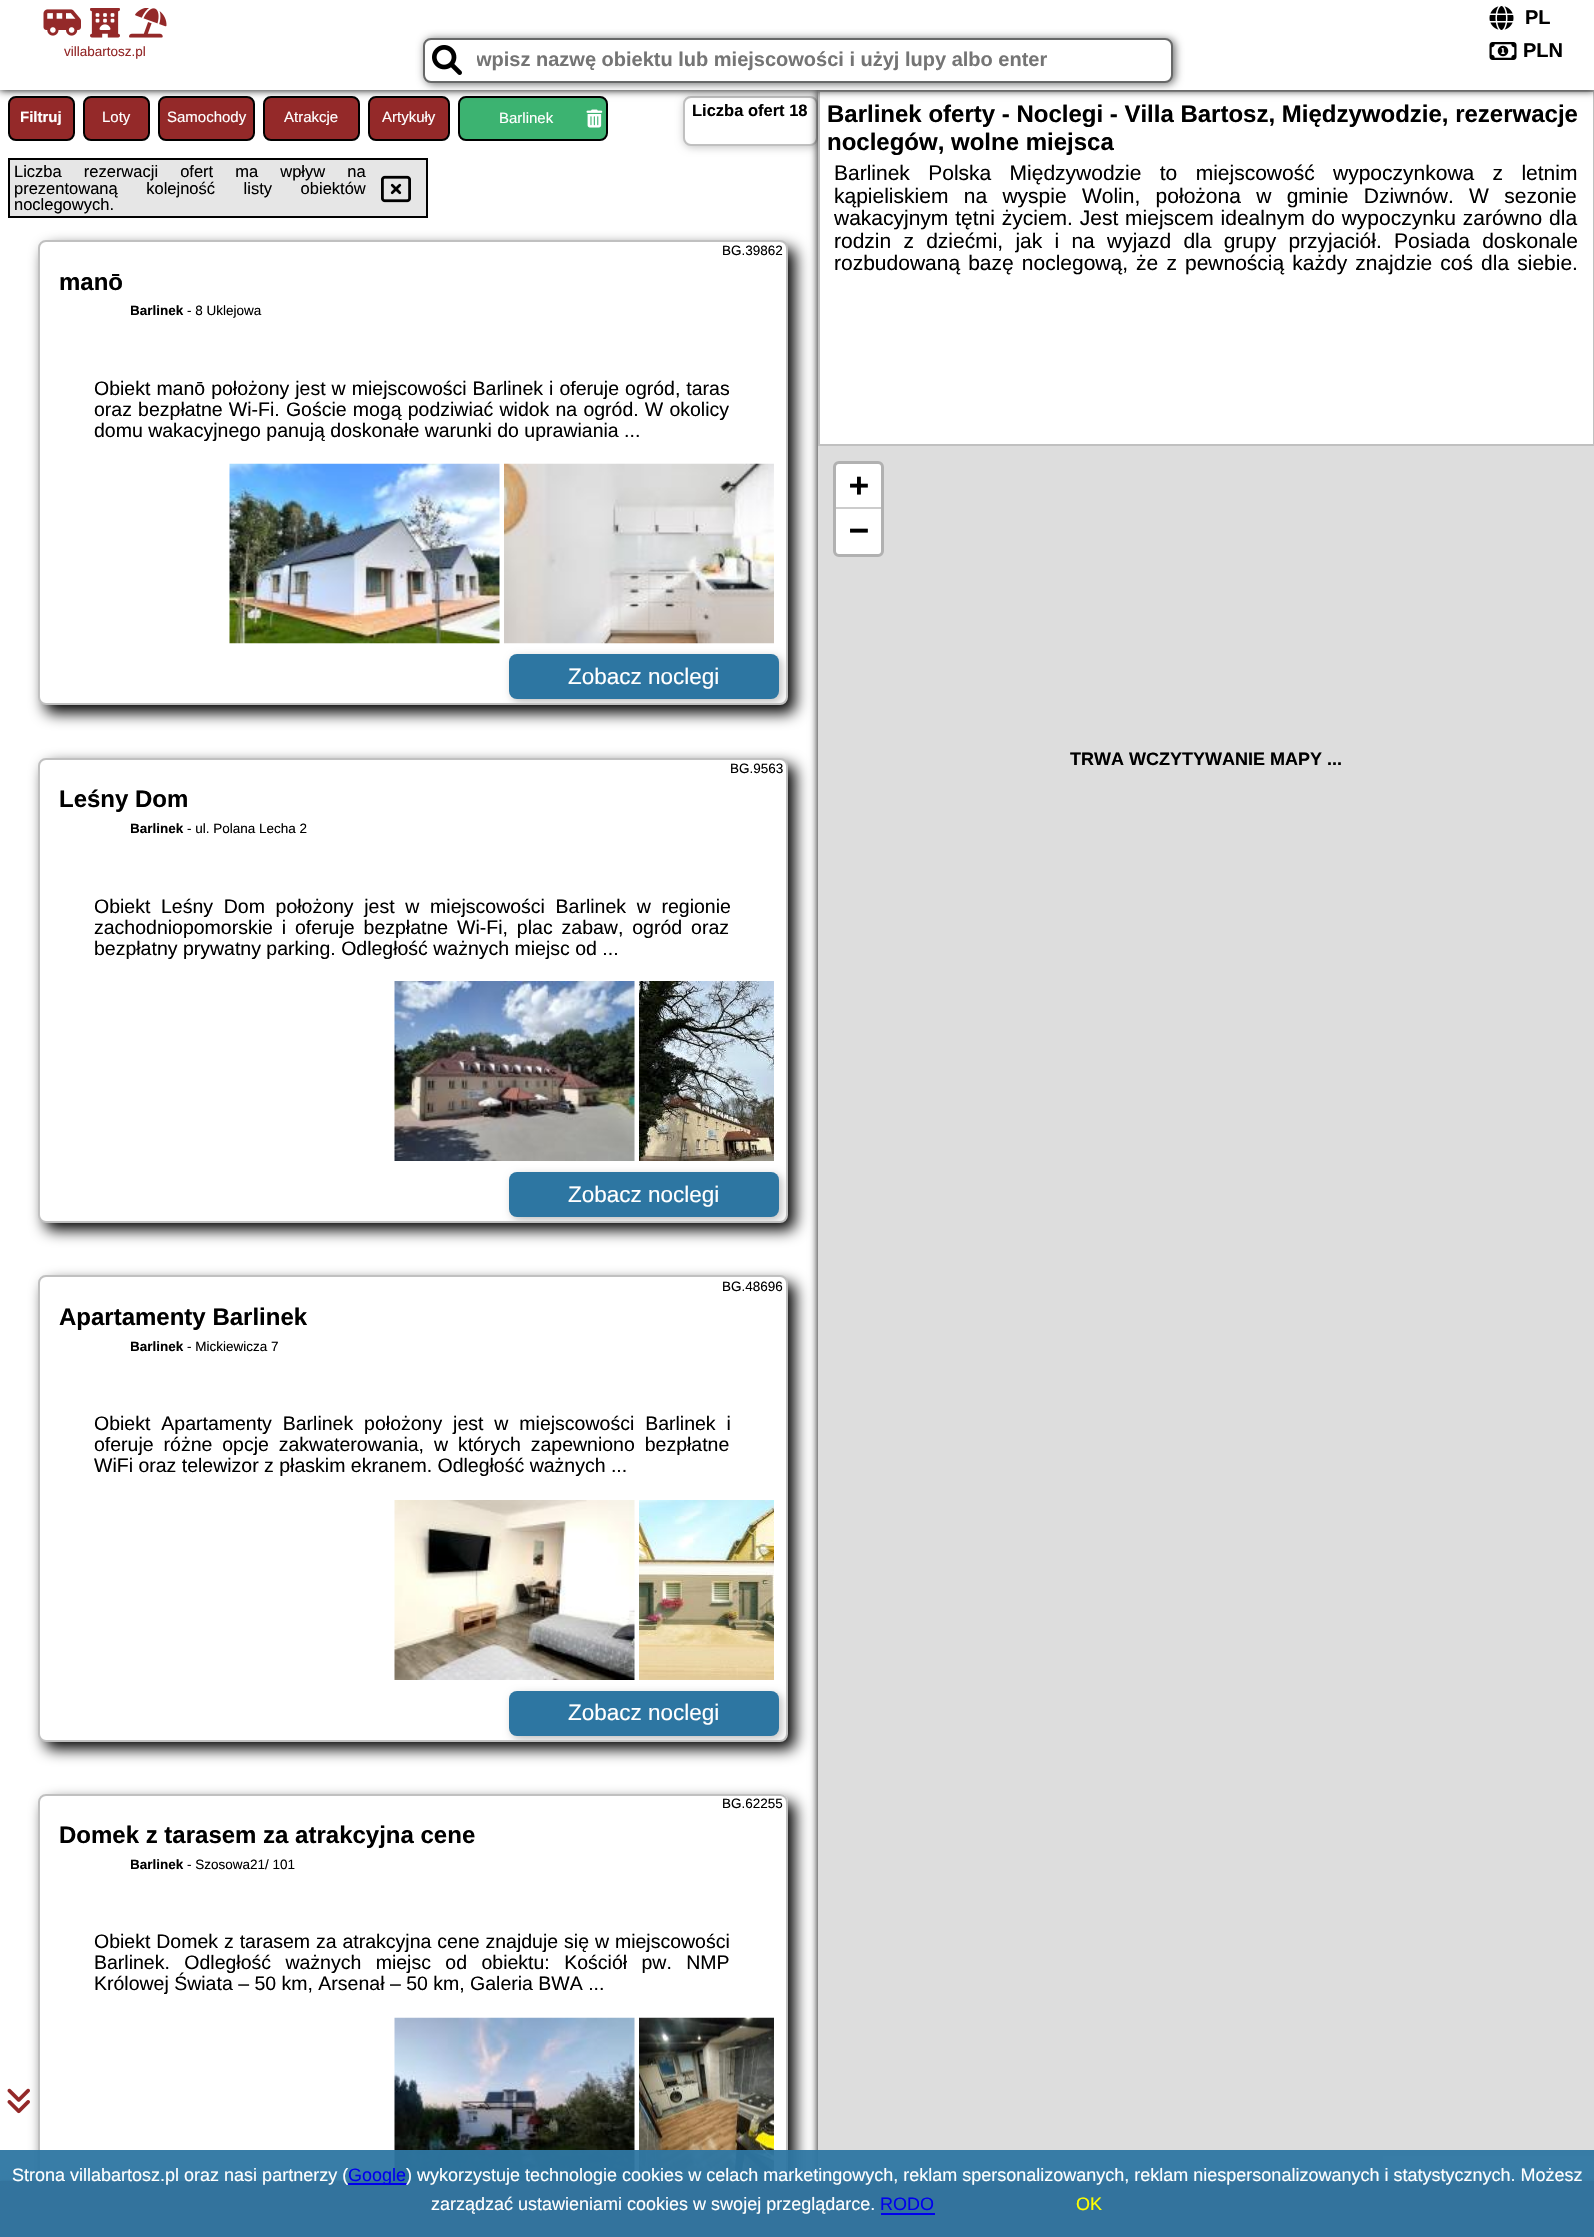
void draw(SkCanvas* canvas) {
  SkPaint paint;
  paint.setAntiAlias(true);
  auto face = [&](const char* family, int weight, float size, bool italic = false) {
    SkFontStyle style(weight, SkFontStyle::kNormal_Width,
      italic ? SkFontStyle::kItalic_Slant : SkFontStyle::kUpright_Slant);
    SkFont result(fontMgr->matchFamilyStyle(family, style), size);
    result.setSubpixel(true);
    return result;
  };
  auto writeSpaced = [&](const char* s, float x, float y, const SkFont& font, const SkPaint& ink, float letter, float word) {
    std::vector<SkGlyphID> glyphs(font.countText(s, strlen(s), SkTextEncoding::kUTF8));
    std::vector<float> xs(glyphs.size());
    font.textToGlyphs(s, strlen(s), SkTextEncoding::kUTF8, glyphs);
    font.getXPos(glyphs, xs, x);
    float extra = 0;
    for (size_t i = 0; i < glyphs.size(); i++) {
      xs[i] += extra;
      extra += letter + word * (glyphs[i] == font.unicharToGlyph(' '));
    }
    canvas->drawTextBlob(SkTextBlob::MakeFromPosHGlyphs(glyphs, xs, y, font), 0, 0, ink);
  };
  auto paste = [&](const char* path, float x, float y, float w, float h) {
    auto image = SkImages::DeferredFromEncodedData(SkData::MakeFromFileName(path));
    canvas->drawImageRect(image, SkRect::MakeXYWH(x, y, w, h), SkSamplingOptions());
  };
  auto shape = [&](const char* data, bool evenOdd = false) {
    SkPath result = *SkParsePath::FromSVGString(data);
    if (evenOdd) result.setFillType(SkPathFillType::kEvenOdd);
    return result;
  };
  canvas->clear(0xffffffff);
  paint.setColor(0xff942929);
  canvas->drawRoundRect(SkRect::MakeXYWH(9, 97, 65, 43), 7, 7, paint);
  paint.setStroke(true);
  paint.setStrokeWidth(2);
  paint.setColor(0xff000000);
  canvas->drawRoundRect(SkRect::MakeXYWH(9, 97, 65, 43), 7, 7, paint);
  paint.setStroke(false);
  paint.setColor(0xff942929);
  canvas->drawRoundRect(SkRect::MakeXYWH(84, 97, 65, 43), 7, 7, paint);
  paint.setStroke(true);
  paint.setColor(0xff000000);
  canvas->drawRoundRect(SkRect::MakeXYWH(84, 97, 65, 43), 7, 7, paint);
  paint.setStroke(false);
  paint.setColor(0xff942929);
  canvas->drawRoundRect(SkRect::MakeXYWH(159, 97, 95, 43), 7, 7, paint);
  paint.setStroke(true);
  paint.setColor(0xff000000);
  canvas->drawRoundRect(SkRect::MakeXYWH(159, 97, 95, 43), 7, 7, paint);
  paint.setStroke(false);
  paint.setColor(0xff942929);
  canvas->drawRoundRect(SkRect::MakeXYWH(264, 97, 95, 43), 7, 7, paint);
  paint.setStroke(true);
  paint.setColor(0xff000000);
  canvas->drawRoundRect(SkRect::MakeXYWH(264, 97, 95, 43), 7, 7, paint);
  paint.setStroke(false);
  paint.setColor(0xff942929);
  canvas->drawRoundRect(SkRect::MakeXYWH(369, 97, 80, 43), 7, 7, paint);
  paint.setStroke(true);
  paint.setColor(0xff000000);
  canvas->drawRoundRect(SkRect::MakeXYWH(369, 97, 80, 43), 7, 7, paint);
  paint.setStroke(false);
  paint.setColor(0xff3cb371);
  canvas->drawRoundRect(SkRect::MakeXYWH(459, 97, 148, 43), 7, 7, paint);
  paint.setStroke(true);
  paint.setColor(0xff000000);
  canvas->drawRoundRect(SkRect::MakeXYWH(459, 97, 148, 43), 7, 7, paint);
  paint.setStroke(false);
  paint.setColor(0xffc0c0c0);
  paint.setMaskFilter(SkMaskFilter::MakeBlur(kNormal_SkBlurStyle, 4));
  canvas->drawRoundRect(SkRect::MakeXYWH(684, 98, 135, 49), 8, 8, paint);
  paint.setMaskFilter(nullptr);
  paint.setColor(0xffffffff);
  canvas->drawRoundRect(SkRect::MakeXYWH(684, 97, 133, 48), 7, 7, paint);
  paint.setStroke(true);
  paint.setColor(0xffc0c0c0);
  canvas->drawRoundRect(SkRect::MakeXYWH(684, 97, 133, 48), 7, 7, paint);
  paint.setStroke(false);
  paint.setColor(0xff000000);
  paint.setMaskFilter(SkMaskFilter::MakeBlur(kNormal_SkBlurStyle, 7.5f));
  canvas->drawRoundRect(SkRect::MakeXYWH(45, 248, 750, 465), 8, 8, paint);
  paint.setMaskFilter(nullptr);
  paint.setMaskFilter(SkMaskFilter::MakeBlur(kNormal_SkBlurStyle, 4));
  canvas->drawRect(SkRect::MakeXYWH(818, 90, 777, 2091), paint);
  paint.setMaskFilter(nullptr);
  paint.setColor(0xffffffff);
  canvas->drawRect(SkRect::MakeXYWH(819, 91, 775, 354), paint);
  paint.setStroke(true);
  paint.setColor(0xffc0c0c0);
  canvas->drawRect(SkRect::MakeXYWH(819, 91, 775, 354), paint);
  paint.setStroke(false);
  paint.setColor(0xff000000);
  paint.setMaskFilter(SkMaskFilter::MakeBlur(kNormal_SkBlurStyle, 4));
  canvas->drawRect(SkRect::MakeXYWH(0, 0, 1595, 90), paint);
  paint.setMaskFilter(nullptr);
  paint.setColor(0xffffffff);
  canvas->drawRect(SkRect::MakeXYWH(0, 0, 1594, 90), paint);
  paste("img/1.png", 1489, 6, 25, 24);
  paste("img/2.png", 43, 9, 38, 27);
  paste("img/3.png", 90, 8, 30, 30);
  paste("img/4.png", 129, 8, 38, 30);
  paint.setColor(0xff676868);
  paint.setMaskFilter(SkMaskFilter::MakeBlur(kNormal_SkBlurStyle, 4));
  canvas->drawRoundRect(SkRect::MakeXYWH(425, 39, 750, 45), 8, 8, paint);
  paint.setMaskFilter(nullptr);
  paint.setColor(0xffffffff);
  canvas->drawRoundRect(SkRect::MakeXYWH(424, 39, 748, 43), 7, 7, paint);
  paint.setStroke(true);
  paint.setColor(0xff676868);
  canvas->drawRoundRect(SkRect::MakeXYWH(424, 39, 748, 43), 7, 7, paint);
  paste("img/5.png", 432, 45, 30, 30);
  paste("img/6.png", 1489, 42, 28, 18);
  paste("img/7.png", 586, 109, 17, 19);
  paint.setStroke(false);
  paint.setColor(0xffe6e6e6);
  canvas->drawRect(SkRect::MakeXYWH(9, 159, 418, 58), paint);
  paint.setStroke(true);
  paint.setColor(0xff000000);
  canvas->drawRect(SkRect::MakeXYWH(9, 159, 418, 58), paint);
  paste("img/8.png", 381, 175, 30, 28);
  paint.setStroke(false);
  paint.setColor(0xffffffff);
  canvas->drawRoundRect(SkRect::MakeXYWH(39, 241, 748, 463), 7, 7, paint);
  paint.setStroke(true);
  paint.setColor(0xffc0c0c0);
  canvas->drawRoundRect(SkRect::MakeXYWH(39, 241, 748, 463), 7, 7, paint);
  paste("img/9.png", 229, 463, 271, 181);
  paste("img/10.png", 504, 463, 270, 181);
  canvas->save();
  canvas->clipPath(shape("M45 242H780C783.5 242 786 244.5 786 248V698C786 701.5 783.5 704 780 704H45C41.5 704 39 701.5 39 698V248C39 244.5 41.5 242 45 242Z"), true);
  paint.setStroke(false);
  paint.setMaskFilter(SkMaskFilter::MakeBlur(kNormal_SkBlurStyle, 4));
  canvas->drawRoundRect(SkRect::MakeXYWH(512, 657, 270, 45), 8, 8, paint);
  paint.setMaskFilter(nullptr);
  canvas->restore();
  paint.setColor(0xff2d76a2);
  canvas->drawRoundRect(SkRect::MakeXYWH(509, 654, 270, 45), 8, 8, paint);
  paint.setColor(0xff000000);
  paint.setMaskFilter(SkMaskFilter::MakeBlur(kNormal_SkBlurStyle, 7.5f));
  canvas->drawRoundRect(SkRect::MakeXYWH(45, 765, 750, 465), 8, 8, paint);
  paint.setMaskFilter(nullptr);
  paint.setColor(0xffffffff);
  canvas->drawRoundRect(SkRect::MakeXYWH(39, 759, 748, 463), 7, 7, paint);
  paint.setStroke(true);
  paint.setColor(0xffc0c0c0);
  canvas->drawRoundRect(SkRect::MakeXYWH(39, 759, 748, 463), 7, 7, paint);
  paste("img/11.png", 394, 981, 241, 180);
  paste("img/12.png", 639, 981, 135, 180);
  canvas->save();
  canvas->clipPath(shape("M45 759H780C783.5 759 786 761.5 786 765V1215C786 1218.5 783.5 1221 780 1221H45C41.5 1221 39 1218.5 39 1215V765C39 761.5 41.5 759 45 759Z"), true);
  paint.setStroke(false);
  paint.setMaskFilter(SkMaskFilter::MakeBlur(kNormal_SkBlurStyle, 4));
  canvas->drawRoundRect(SkRect::MakeXYWH(512, 1175, 270, 45), 8, 8, paint);
  paint.setMaskFilter(nullptr);
  canvas->restore();
  paint.setColor(0xff2d76a2);
  canvas->drawRoundRect(SkRect::MakeXYWH(509, 1172, 270, 45), 8, 8, paint);
  paint.setColor(0xff000000);
  paint.setMaskFilter(SkMaskFilter::MakeBlur(kNormal_SkBlurStyle, 7.5f));
  canvas->drawRoundRect(SkRect::MakeXYWH(45, 1283, 750, 466), 8, 8, paint);
  paint.setMaskFilter(nullptr);
  paint.setColor(0xffffffff);
  canvas->drawRoundRect(SkRect::MakeXYWH(39, 1276, 748, 465), 7, 7, paint);
  paint.setStroke(true);
  paint.setColor(0xffc0c0c0);
  canvas->drawRoundRect(SkRect::MakeXYWH(39, 1276, 748, 465), 7, 7, paint);
  paste("img/13.png", 394, 1500, 241, 180);
  paste("img/14.png", 639, 1500, 135, 180);
  canvas->save();
  canvas->clipPath(shape("M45 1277H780C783.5 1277 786 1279.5 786 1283V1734C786 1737.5 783.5 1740 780 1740H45C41.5 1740 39 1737.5 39 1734V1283C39 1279.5 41.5 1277 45 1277Z"), true);
  paint.setStroke(false);
  paint.setMaskFilter(SkMaskFilter::MakeBlur(kNormal_SkBlurStyle, 4));
  canvas->drawRoundRect(SkRect::MakeXYWH(512, 1694, 270, 45), 8, 8, paint);
  paint.setMaskFilter(nullptr);
  canvas->restore();
  paint.setColor(0xff2d76a2);
  canvas->drawRoundRect(SkRect::MakeXYWH(509, 1691, 270, 45), 8, 8, paint);
  paint.setColor(0xff000000);
  paint.setMaskFilter(SkMaskFilter::MakeBlur(kNormal_SkBlurStyle, 7.5f));
  canvas->drawRoundRect(SkRect::MakeXYWH(45, 1802, 750, 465), 8, 8, paint);
  paint.setMaskFilter(nullptr);
  paint.setColor(0xffffffff);
  canvas->drawPath(shape("M46 1794H780C784.5 1794 788 1797.5 788 1802V2181H38V1802C38 1797.5 41.5 1794 46 1794Z"), paint);
  paint.setStroke(true);
  paint.setColor(0xffc0c0c0);
  canvas->drawRoundRect(SkRect::MakeXYWH(39, 1795, 748, 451), 7, 7, paint);
  paste("img/15.png", 394, 2017, 241, 164);
  paste("img/16.png", 639, 2017, 135, 164);
  paste("img/17.png", 7, 2088, 23, 26);
  paint.setStroke(false);
  paint.setColor(0xffdddddd);
  canvas->drawRect(SkRect::MakeXYWH(818, 446, 776, 1735), paint);
  paint.setStroke(true);
  paint.setStrokeWidth(3);
  paint.setColor(0xffb1b1b1);
  canvas->drawRoundRect(SkRect::MakeXYWH(834.5f, 462.5f, 48, 93), 4.5f, 4.5f, paint);
  paint.setStroke(false);
  paint.setColor(0xffffffff);
  canvas->drawPath(shape("M839 464H878C879.5 464 881 465.5 881 467V509H836V467C836 465.5 837.5 464 839 464Z"), paint);
  paint.setColor(0xffcccccc);
  canvas->drawRect(SkRect::MakeXYWH(836, 507, 45, 2), paint);
  paint.setColor(0xffffffff);
  canvas->drawPath(shape("M836 509H881V551C881 552.5 879.5 554 878 554H839C837.5 554 836 552.5 836 551Z"), paint);
  paint.setColor(0xfff5f5f5);
  canvas->drawRect(SkRect::MakeXYWH(1383, 2156, 211, 25), paint);
  paint.setColor(0xff942929);
  paint.setMaskFilter(SkMaskFilter::MakeBlur(kNormal_SkBlurStyle, 1.5f));
  canvas->drawRect(SkRect::MakeXYWH(0, 2181, 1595, 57), paint);
  paint.setMaskFilter(nullptr);
  {
    const struct { float x, y, w, h; SkColor color; } items[] = {
      {0, 2181, 1594, 56, 0xff942929},
      {0, 2150, 1594, 87, 0xf22d76a2},
      {348, 2183, 59, 2, 0xff0000ee},
      {881, 2213, 54, 2, 0xff0000ee},
    };
    for (auto [x, y, w, h, color] : items) {
      paint.setColor(color);
      canvas->drawRect(SkRect::MakeXYWH(x, y, w, h), paint);
    }
  }
  auto f0 = face("Liberation Sans", 700, 20);
  paint.setColor(0xff000000);
  canvas->drawString("PL", 1525, 24, f0, paint);
  auto f1 = face("Liberation Sans", 400, 13.5f);
  paint.setColor(0xff942929);
  canvas->drawString("villabartosz.pl", 64, 56, f1, paint);
  canvas->save();
  canvas->clipRect(SkRect::MakeXYWH(477, 48, 651, 23));
  paint.setColor(0xff757575);
  canvas->drawString("wpisz nazwę obiektu lub miejscowości i użyj lupy albo enter", 476, 66, f0, paint);
  canvas->restore();
  paint.setColor(0xff000000);
  canvas->drawString("PLN", 1523, 57, f0, paint);
  auto f2 = face("Liberation Sans", 700, 15);
  paint.setColor(0xffffffff);
  canvas->drawString("Filtruj", 20, 122, f2, paint);
  auto f3 = face("Liberation Sans", 400, 15);
  {
    const struct { const char* s; float x, y; } items[] = {
      {"Loty", 102, 122},
      {"Samochody", 167, 122},
      {"Atrakcje", 284, 122},
      {"Artykuły", 382, 122},
      {"Barlinek", 499, 123},
    };
    for (auto [s, x, y] : items) {
      canvas->drawString(s, x, y, f3, paint);
    }
  }
  auto f4 = face("Liberation Sans", 700, 16.5f);
  paint.setColor(0xff000000);
  canvas->drawString("Liczba ofert 18", 692, 116, f4, paint);
  auto f5 = face("Liberation Sans", 400, 16.5f);
  writeSpaced("Liczba rezerwacji ofert ma wpływ na", 14, 177, f5, paint, 0, 17.5f);
  writeSpaced("prezentowaną kolejność listy obiektów", 14, 194, f5, paint, 0, 24);
  canvas->drawString("noclegowych.", 14, 210, f5, paint);
  canvas->drawString("BG.39862", 722, 255, f1, paint);
  auto f6 = face("Liberation Sans", 700, 24);
  canvas->drawString("manō", 59, 290, f6, paint);
  canvas->save();
  canvas->clipRect(SkRect::MakeXYWH(131, 303, 643, 60));
  auto f7 = face("Liberation Sans", 700, 13.5f);
  canvas->drawString("Barlinek", 130, 315, f7, paint);
  canvas->restore();
  canvas->drawString("- 8 Uklejowa", 187, 315, f1, paint);
  auto f8 = face("Liberation Sans", 400, 19.5f);
  writeSpaced("Obiekt manō położony jest w miejscowości Barlinek i oferuje ogród, taras", 94, 395, f8, paint, 0, 0.6f);
  writeSpaced("oraz bezpłatne Wi-Fi. Goście mogą podziwiać widok na ogród. W okolicy", 94, 416, f8, paint, 0, 0.75f);
  canvas->drawString("domu wakacyjnego panują doskonałe warunki do uprawiania ...", 94, 437, f8, paint);
  auto f9 = face("Liberation Sans", 400, 22.5f);
  paint.setColor(0xffffffff);
  canvas->drawString("Zobacz noclegi", 568, 684, f9, paint);
  paint.setColor(0xff000000);
  canvas->drawString("BG.9563", 730, 773, f1, paint);
  canvas->drawString("Leśny Dom", 59, 807, f6, paint);
  canvas->save();
  canvas->clipRect(SkRect::MakeXYWH(131, 821, 643, 60));
  canvas->drawString("Barlinek", 130, 833, f7, paint);
  canvas->restore();
  canvas->drawString("- ul. Polana Lecha 2", 187, 833, f1, paint);
  writeSpaced("Obiekt Leśny Dom położony jest w miejscowości Barlinek w regionie", 94, 913, f8, paint, 0, 5.25f);
  writeSpaced("zachodniopomorskie i oferuje bezpłatne Wi-Fi, plac zabaw, ogród oraz", 94, 934, f8, paint, 0, 3.5f);
  canvas->drawString("bezpłatny prywatny parking. Odległość ważnych miejsc od ...", 94, 955, f8, paint);
  paint.setColor(0xffffffff);
  canvas->drawString("Zobacz noclegi", 568, 1202, f9, paint);
  paint.setColor(0xff000000);
  canvas->drawString("BG.48696", 722, 1291, f1, paint);
  canvas->drawString("Apartamenty Barlinek", 59, 1325, f6, paint);
  canvas->save();
  canvas->clipRect(SkRect::MakeXYWH(131, 1340, 643, 60));
  canvas->drawString("Barlinek", 130, 1351, f7, paint);
  canvas->restore();
  canvas->drawString("- Mickiewicza 7", 187, 1351, f1, paint);
  writeSpaced("Obiekt Apartamenty Barlinek położony jest w miejscowości Barlinek i", 94, 1430, f8, paint, 0, 5.5f);
  writeSpaced("oferuje różne opcje zakwaterowania, w których zapewniono bezpłatne", 94, 1451, f8, paint, 0, 4.5f);
  canvas->drawString("WiFi oraz telewizor z płaskim ekranem. Odległość ważnych ...", 94, 1472, f8, paint);
  paint.setColor(0xffffffff);
  canvas->drawString("Zobacz noclegi", 568, 1720, f9, paint);
  paint.setColor(0xff000000);
  canvas->drawString("BG.62255", 722, 1808, f1, paint);
  canvas->drawString("Domek z tarasem za atrakcyjna cene", 59, 1843, f6, paint);
  canvas->save();
  canvas->clipRect(SkRect::MakeXYWH(131, 1857, 643, 60));
  canvas->drawString("Barlinek", 130, 1869, f7, paint);
  canvas->restore();
  canvas->drawString("- Szosowa21/ 101", 187, 1869, f1, paint);
  writeSpaced("Obiekt Domek z tarasem za atrakcyjna cene znajduje się w miejscowości", 94, 1948, f8, paint, 0, 0.5f);
  writeSpaced("Barlinek. Odległość ważnych miejsc od obiektu: Kościół pw. NMP", 94, 1969, f8, paint, 0, 9);
  canvas->drawString("Królowej Świata – 50 km, Arsenał – 50 km, Galeria BWA ...", 94, 1990, f8, paint);
  canvas->drawString("Barlinek oferty - Noclegi - Villa Bartosz, Międzywodzie, rezerwacje", 827, 122, f6, paint);
  canvas->drawString("noclegów, wolne miejsca", 827, 150, f6, paint);
  auto f10 = face("Liberation Sans", 400, 21);
  writeSpaced("Barlinek Polska Międzywodzie to miejscowość wypoczynkowa z letnim", 834, 180, f10, paint, 0, 12.5f);
  writeSpaced("kąpieliskiem na wyspie Wolin, położona w gminie Dziwnów. W sezonie", 834, 203, f10, paint, 0, 9.5f);
  writeSpaced("wakacyjnym tętni życiem. Jest miejscem idealnym do wypoczynku zarówno dla", 834, 225, f10, paint, 0, 1);
  writeSpaced("rodzin z dziećmi, jak i na wyjazd dla grupy przyjaciół. Posiada doskonale", 834, 248, f10, paint, 0, 6.4f);
  writeSpaced("rozbudowaną bazę noclegową, że z pewnością każdy znajdzie coś dla siebie.", 834, 270, f10, paint, 0, 2.25f);
  auto f11 = face("DejaVu Sans Mono", 700, 33);
  canvas->drawString("+", 849, 496, f11, paint);
  canvas->drawString("−", 849, 541, f11, paint);
  auto f12 = face("Liberation Sans", 700, 18);
  canvas->drawString("TRWA WCZYTYWANIE MAPY ...", 1070, 765, f12, paint);
  auto f13 = face("Liberation Sans", 400, 18);
  paint.setColor(0xffffffff);
  canvas->drawString("Strona villabartosz.pl oraz nasi partnerzy (", 12, 2181, f13, paint);
  paint.setColor(0xff0000ee);
  canvas->drawString("Google", 348, 2181, f13, paint);
  paint.setColor(0xffffffff);
  canvas->drawString(") wykorzystuje technologie cookies w celach marketingowych, reklam spersonalizowanych, reklam niespersonalizowanych i statystycznych. Możesz", 406, 2181, f13, paint);
  canvas->drawString("zarządzać ustawieniami cookies w swojej przeglądarce.", 431, 2210, f13, paint);
  paint.setColor(0xff0000ee);
  canvas->drawString("RODO", 880, 2210, f13, paint);
  paint.setColor(0xffffff00);
  canvas->drawString("OK", 1076, 2210, f13, paint);
}
